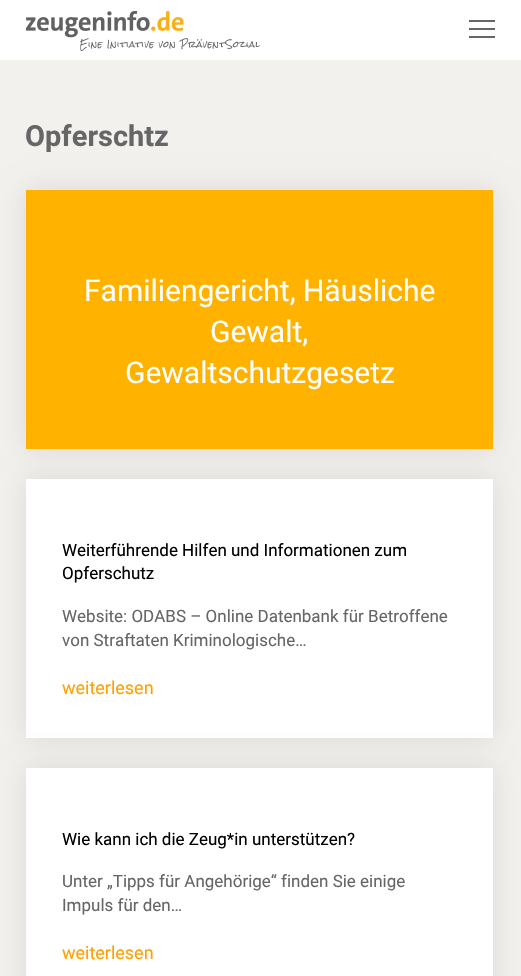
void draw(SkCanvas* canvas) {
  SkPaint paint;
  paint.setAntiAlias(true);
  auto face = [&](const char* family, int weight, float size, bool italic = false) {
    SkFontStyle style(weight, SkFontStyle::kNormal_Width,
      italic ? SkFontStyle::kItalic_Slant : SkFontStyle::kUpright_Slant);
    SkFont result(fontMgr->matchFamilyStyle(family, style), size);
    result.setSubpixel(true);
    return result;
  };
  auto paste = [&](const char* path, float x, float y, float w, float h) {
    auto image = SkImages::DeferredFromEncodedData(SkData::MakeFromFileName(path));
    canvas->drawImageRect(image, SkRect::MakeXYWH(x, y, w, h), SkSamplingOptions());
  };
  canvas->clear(0xfff2f1ee);
  paint.setColor(0xffffffff);
  canvas->drawRect(SkRect::MakeXYWH(0, 0, 521, 60), paint);
  paste("img/1.png", 26, 11, 234, 40);
  {
    const struct { float x, y, w, h; SkColor color; } items[] = {
      {469, 20, 26, 2, 0xff666666},
      {469, 28, 26, 2, 0xff666666},
      {469, 36, 26, 2, 0xff666666},
    };
    for (auto [x, y, w, h, color] : items) {
      paint.setColor(color);
      canvas->drawRect(SkRect::MakeXYWH(x, y, w, h), paint);
    }
  }
  paint.setColor(0x1a000000);
  paint.setMaskFilter(SkMaskFilter::MakeBlur(kNormal_SkBlurStyle, 12.5f));
  canvas->drawRect(SkRect::MakeXYWH(26, 190, 467, 259), paint);
  paint.setMaskFilter(nullptr);
  paint.setMaskFilter(SkMaskFilter::MakeBlur(kNormal_SkBlurStyle, 12.5f));
  canvas->drawRect(SkRect::MakeXYWH(26, 479, 467, 259), paint);
  paint.setMaskFilter(nullptr);
  paint.setColor(0xffffb200);
  canvas->drawRect(SkRect::MakeXYWH(26, 190, 467, 259), paint);
  paint.setColor(0xffffffff);
  canvas->drawRect(SkRect::MakeXYWH(26, 479, 467, 259), paint);
  paint.setColor(0x1a000000);
  paint.setMaskFilter(SkMaskFilter::MakeBlur(kNormal_SkBlurStyle, 12.5f));
  canvas->drawRect(SkRect::MakeXYWH(26, 768, 467, 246), paint);
  paint.setMaskFilter(nullptr);
  paint.setColor(0xffffffff);
  canvas->drawRect(SkRect::MakeXYWH(26, 768, 467, 208), paint);
  auto f0 = face("Roboto", 700, 29);
  paint.setColor(0xff666666);
  canvas->drawString("Opferschtz", 25, 146, f0, paint);
  auto f1 = face("Roboto", 400, 30);
  paint.setColor(0xffffffff);
  {
    const struct { const char* s; float x, y; } items[] = {
      {"Familiengericht, Häusliche", 84, 301},
      {"Gewalt,", 210, 342},
      {"Gewaltschutzgesetz", 125, 383},
    };
    for (auto [s, x, y] : items) {
      canvas->drawString(s, x, y, f1, paint);
    }
  }
  auto f2 = face("Roboto", 400, 17);
  paint.setColor(0xff000000);
  canvas->drawString("Weiterführende Hilfen und Informationen zum", 62, 556, f2, paint);
  canvas->drawString("Opferschutz", 62, 579, f2, paint);
  paint.setColor(0xff666666);
  canvas->drawString("Website: ODABS – Online Datenbank für Betroffene", 62, 622, f2, paint);
  canvas->drawString("von Straftaten Kriminologische…", 62, 646, f2, paint);
  auto f3 = face("Roboto", 400, 18);
  paint.setColor(0xffffa100);
  canvas->drawString("weiterlesen", 62, 694, f3, paint);
  paint.setColor(0xff000000);
  canvas->drawString("Wie kann ich die Zeug*in unterstützen?", 62, 845, f2, paint);
  paint.setColor(0xff666666);
  canvas->drawString("Unter „Tipps für Angehörige“ finden Sie einige", 62, 887, f2, paint);
  canvas->drawString("Impuls für den…", 62, 911, f2, paint);
  paint.setColor(0xffffa100);
  canvas->drawString("weiterlesen", 62, 959, f3, paint);
}
